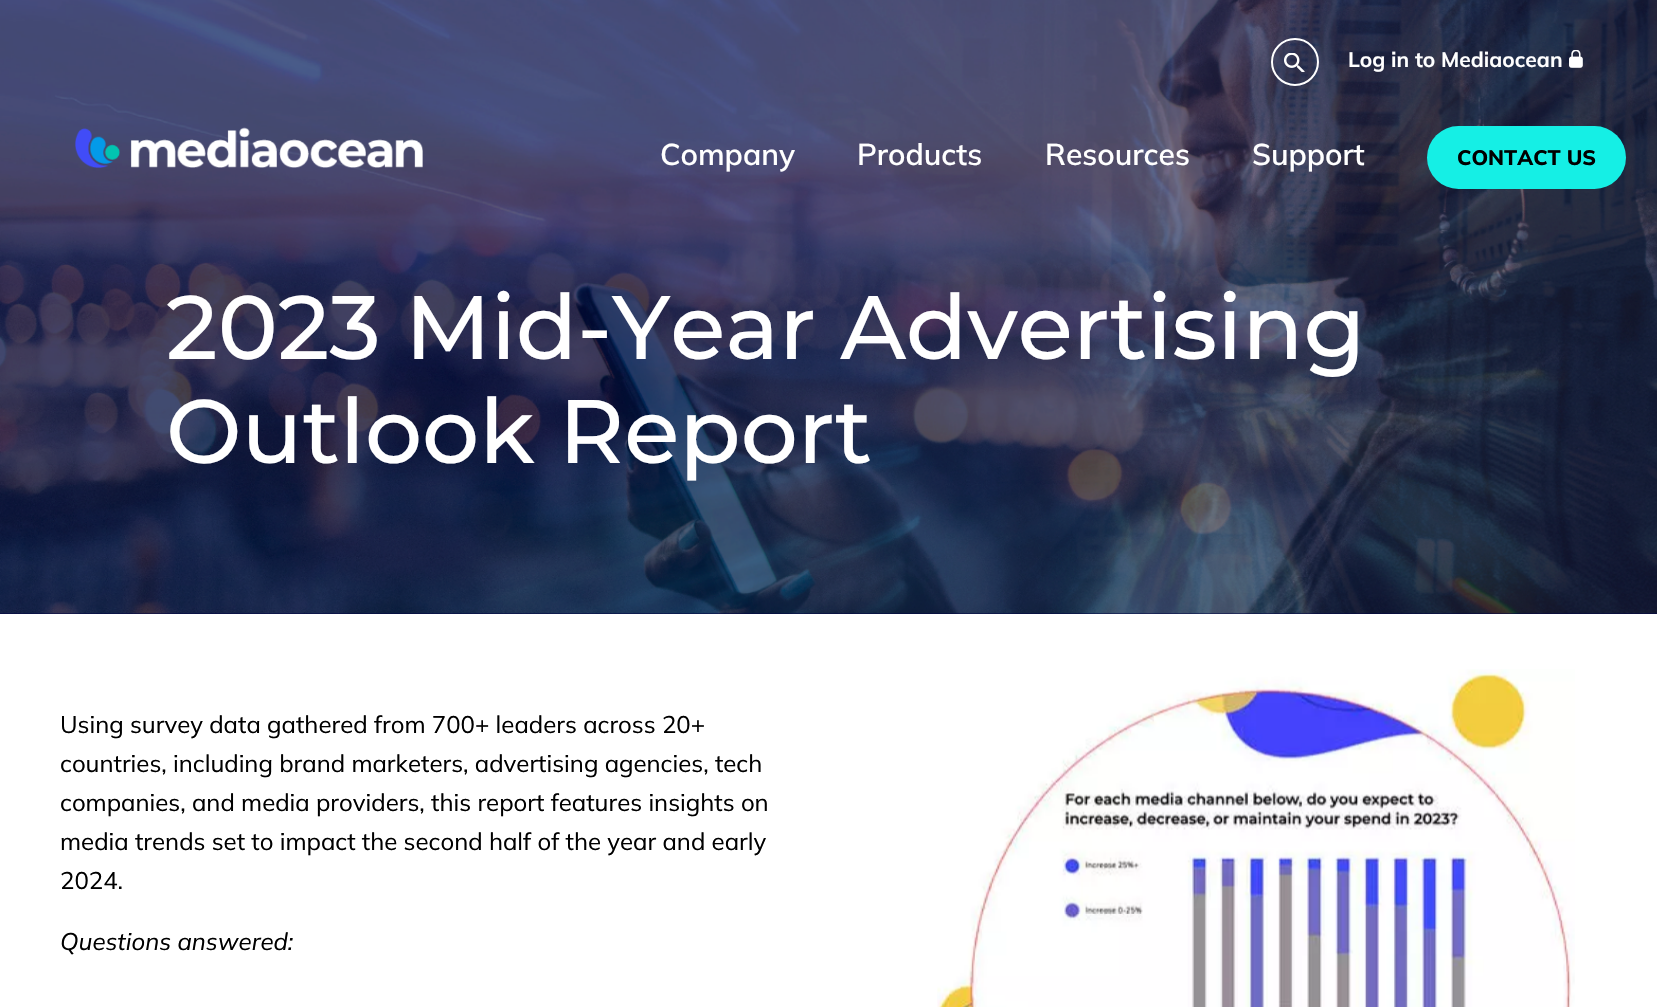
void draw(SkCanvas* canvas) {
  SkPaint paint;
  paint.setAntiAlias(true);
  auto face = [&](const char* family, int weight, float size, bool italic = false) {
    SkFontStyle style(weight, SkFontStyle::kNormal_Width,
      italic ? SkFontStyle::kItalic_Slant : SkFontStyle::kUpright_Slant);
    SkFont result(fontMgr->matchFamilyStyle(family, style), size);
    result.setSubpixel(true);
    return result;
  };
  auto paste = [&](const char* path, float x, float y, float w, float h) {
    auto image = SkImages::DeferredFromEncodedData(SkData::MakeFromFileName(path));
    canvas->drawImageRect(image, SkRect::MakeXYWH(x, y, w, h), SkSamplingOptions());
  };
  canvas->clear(0xffffffff);
  paint.setColor(0xff000443);
  canvas->drawRect(SkRect::MakeXYWH(0, 613, 1657, 1), paint);
  paste("img/1.png", 0, 0, 1657, 614);
  paint.setStroke(true);
  paint.setStrokeWidth(2);
  paint.setColor(0xffffffff);
  canvas->drawCircle(1295, 62, 23, paint);
  paste("img/2.png", 1284, 53, 21, 19);
  paste("img/3.png", 1569, 50, 14, 18);
  paste("img/4.png", 75, 127, 348, 41);
  paint.setStroke(false);
  paint.setColor(0xff15efe5);
  canvas->drawRoundRect(SkRect::MakeXYWH(1427, 126, 199, 63), 31.5f, 31.5f, paint);
  paste("img/5.png", 937, 669, 638, 338);
  auto f0 = face("Mulish", 700, 21);
  paint.setColor(0xffffffff);
  canvas->drawString("Log in to Mediaocean", 1348, 67, f0, paint);
  auto f1 = face("Mulish", 600, 30);
  {
    const struct { const char* s; float x, y; } items[] = {
      {"Company", 660, 165},
      {"Products", 857, 165},
      {"Resources", 1045, 165},
      {"Support", 1252, 165},
    };
    for (auto [s, x, y] : items) {
      canvas->drawString(s, x, y, f1, paint);
    }
  }
  auto f2 = face("Mulish", 800, 21);
  paint.setColor(0xff000000);
  canvas->drawString("CONTACT US", 1457, 165, f2, paint);
  auto f3 = face("Montserrat", 500, 90);
  paint.setColor(0xffffffff);
  canvas->drawString("2023 Mid-Year Advertising", 166, 359, f3, paint);
  canvas->drawString("Outlook Report", 166, 463, f3, paint);
  auto f4 = face("Mulish", 400, 24);
  paint.setColor(0xff000000);
  {
    const struct { const char* s; float x, y; } items[] = {
      {"Using survey data gathered from 700+ leaders across 20+", 60, 733},
      {"countries, including brand marketers, advertising agencies, tech", 60, 772},
      {"companies, and media providers, this report features insights on", 60, 811},
      {"media trends set to impact the second half of the year and early", 60, 850},
      {"2024.", 60, 889},
    };
    for (auto [s, x, y] : items) {
      canvas->drawString(s, x, y, f4, paint);
    }
  }
  auto f5 = face("Mulish", 400, 24, true);
  canvas->drawString("Questions answered:", 60, 950, f5, paint);
}
